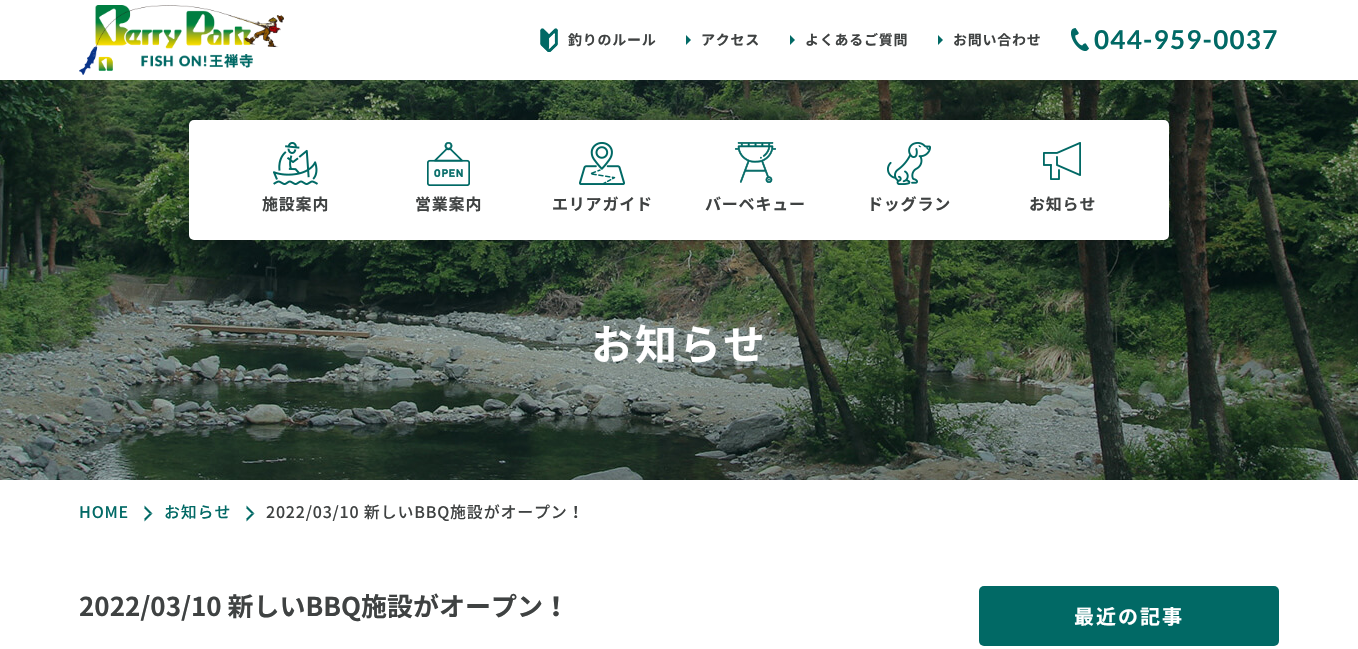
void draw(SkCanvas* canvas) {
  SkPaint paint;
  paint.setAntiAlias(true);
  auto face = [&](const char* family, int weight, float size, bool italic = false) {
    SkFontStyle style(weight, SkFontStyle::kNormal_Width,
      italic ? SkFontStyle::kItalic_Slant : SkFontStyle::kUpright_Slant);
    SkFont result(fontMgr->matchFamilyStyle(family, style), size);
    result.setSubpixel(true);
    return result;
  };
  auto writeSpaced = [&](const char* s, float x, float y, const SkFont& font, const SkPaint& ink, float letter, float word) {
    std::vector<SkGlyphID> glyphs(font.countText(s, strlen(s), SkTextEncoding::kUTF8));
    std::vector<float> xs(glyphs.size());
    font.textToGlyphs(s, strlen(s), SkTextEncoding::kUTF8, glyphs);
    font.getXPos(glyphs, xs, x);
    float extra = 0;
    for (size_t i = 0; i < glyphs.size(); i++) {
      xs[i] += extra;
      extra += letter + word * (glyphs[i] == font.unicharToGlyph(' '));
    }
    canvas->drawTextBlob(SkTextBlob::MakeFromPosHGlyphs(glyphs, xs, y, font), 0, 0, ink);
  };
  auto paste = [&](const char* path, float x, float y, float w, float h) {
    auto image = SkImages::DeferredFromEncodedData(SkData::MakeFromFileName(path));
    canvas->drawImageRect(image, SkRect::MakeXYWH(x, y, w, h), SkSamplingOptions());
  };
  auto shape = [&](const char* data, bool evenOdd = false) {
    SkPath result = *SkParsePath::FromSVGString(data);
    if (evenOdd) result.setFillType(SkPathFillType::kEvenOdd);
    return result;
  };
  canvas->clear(0xffffffff);
  paste("img/1.png", 79, 5, 205, 70);
  paste("img/2.png", 540, 28, 18, 24);
  paint.setColor(0xff016965);
  canvas->drawPath(shape("M686 45V35L691 40Z"), paint);
  canvas->drawPath(shape("M790 45V35L795 40Z"), paint);
  canvas->drawPath(shape("M938 45V35L943 40Z"), paint);
  paste("img/3.png", 1071, 28, 18, 23);
  paste("img/4.png", 0, 80, 1358, 400);
  paint.setColor(0x33000000);
  paint.setMaskFilter(SkMaskFilter::MakeBlur(kNormal_SkBlurStyle, 7.5f));
  canvas->drawRoundRect(SkRect::MakeXYWH(189, 120, 980, 120), 5, 5, paint);
  paint.setMaskFilter(nullptr);
  paint.setColor(0xffffffff);
  canvas->drawRoundRect(SkRect::MakeXYWH(189, 120, 980, 120), 5, 5, paint);
  paste("img/5.png", 273, 142, 45, 43);
  paste("img/6.png", 427, 142, 43, 44);
  paste("img/7.png", 579, 142, 46, 43);
  paste("img/8.png", 735, 142, 41, 41);
  paste("img/9.png", 887, 142, 44, 43);
  paste("img/10.png", 1043, 142, 38, 38);
  paint.setColor(0xff016965);
  canvas->drawPath(shape("M144.5 505.5L152.5 513.5H149.5L144.5 508.5Z"), paint);
  canvas->drawPath(shape("M152.5 513.5L144.5 521.5V518.5L149.5 513.5Z"), paint);
  canvas->drawPath(shape("M246.5 505.5L254.5 513.5H251.5L246.5 508.5Z"), paint);
  canvas->drawPath(shape("M254.5 513.5L246.5 521.5V518.5L251.5 513.5Z"), paint);
  canvas->drawRoundRect(SkRect::MakeXYWH(979, 586, 300, 60), 5, 5, paint);
  auto f0 = face("Noto Sans CJK JP", 700, 14);
  paint.setColor(0xff3f4242);
  {
    const struct { const char* s; float x, y; } items[] = {
      {"釣りのルール", 568, 45},
      {"アクセス", 701, 45},
      {"よくあるご質問", 805, 45},
      {"お問い合わせ", 953, 45},
    };
    for (auto [s, x, y] : items) {
      writeSpaced(s, x, y, f0, paint, 0.75f, 0);
    }
  }
  auto f1 = face("Lato", 700, 26);
  paint.setColor(0xff016965);
  writeSpaced("044-959-0037", 1094, 49, f1, paint, 1.25f, 0);
  auto f2 = face("Noto Sans CJK JP", 700, 16);
  paint.setColor(0xff3f4242);
  {
    const struct { const char* s; float x, y; } items[] = {
      {"施設案内", 262, 210},
      {"営業案内", 415, 210},
      {"エリアガイド", 552, 210},
      {"バーベキュー", 705, 210},
      {"ドッグラン", 867, 210},
      {"お知らせ", 1029, 210},
    };
    for (auto [s, x, y] : items) {
      writeSpaced(s, x, y, f2, paint, 0.8f, 0);
    }
  }
  auto f3 = face("Noto Sans CJK JP", 700, 42);
  paint.setColor(0xffffffff);
  writeSpaced("お知らせ", 591, 360, f3, paint, 2, 0);
  auto f4 = face("Noto Sans CJK JP", 500, 16);
  paint.setColor(0xff016965);
  writeSpaced("HOME", 79, 518, f4, paint, 0.8f, 0);
  writeSpaced("お知らせ", 164, 518, f4, paint, 0.8f, 0);
  paint.setColor(0xff3f4242);
  writeSpaced("2022/03/10 新しいBBQ施設がオープン！", 266, 518, f4, paint, 0.8f, 0);
  auto f5 = face("Noto Sans CJK JP", 700, 26);
  canvas->drawString("2022/03/10 新しいBBQ施設がオープン！", 79, 616, f5, paint);
  auto f6 = face("Noto Sans CJK JP", 700, 20);
  paint.setColor(0xffffffff);
  writeSpaced("最近の記事", 1074, 624, f6, paint, 2, 0);
}
